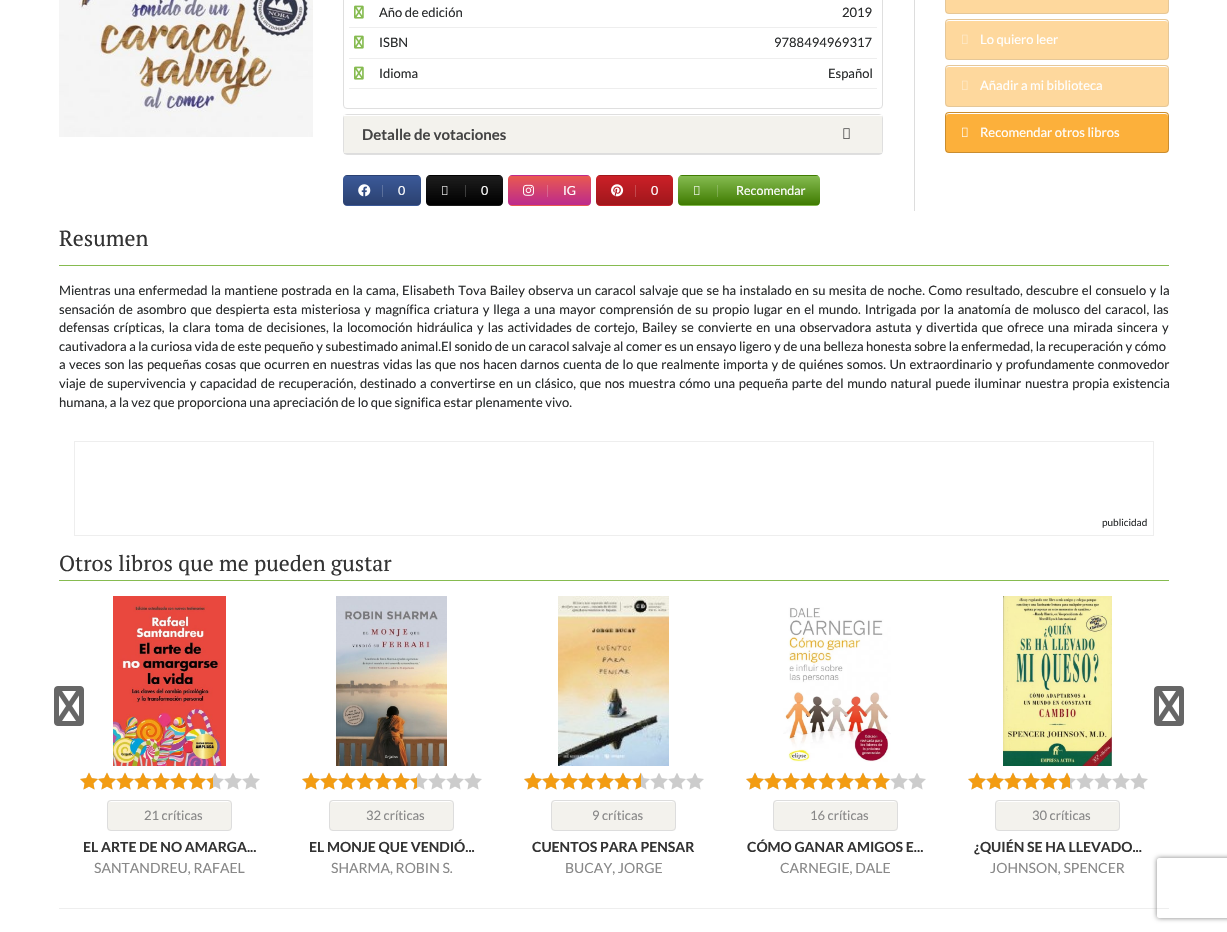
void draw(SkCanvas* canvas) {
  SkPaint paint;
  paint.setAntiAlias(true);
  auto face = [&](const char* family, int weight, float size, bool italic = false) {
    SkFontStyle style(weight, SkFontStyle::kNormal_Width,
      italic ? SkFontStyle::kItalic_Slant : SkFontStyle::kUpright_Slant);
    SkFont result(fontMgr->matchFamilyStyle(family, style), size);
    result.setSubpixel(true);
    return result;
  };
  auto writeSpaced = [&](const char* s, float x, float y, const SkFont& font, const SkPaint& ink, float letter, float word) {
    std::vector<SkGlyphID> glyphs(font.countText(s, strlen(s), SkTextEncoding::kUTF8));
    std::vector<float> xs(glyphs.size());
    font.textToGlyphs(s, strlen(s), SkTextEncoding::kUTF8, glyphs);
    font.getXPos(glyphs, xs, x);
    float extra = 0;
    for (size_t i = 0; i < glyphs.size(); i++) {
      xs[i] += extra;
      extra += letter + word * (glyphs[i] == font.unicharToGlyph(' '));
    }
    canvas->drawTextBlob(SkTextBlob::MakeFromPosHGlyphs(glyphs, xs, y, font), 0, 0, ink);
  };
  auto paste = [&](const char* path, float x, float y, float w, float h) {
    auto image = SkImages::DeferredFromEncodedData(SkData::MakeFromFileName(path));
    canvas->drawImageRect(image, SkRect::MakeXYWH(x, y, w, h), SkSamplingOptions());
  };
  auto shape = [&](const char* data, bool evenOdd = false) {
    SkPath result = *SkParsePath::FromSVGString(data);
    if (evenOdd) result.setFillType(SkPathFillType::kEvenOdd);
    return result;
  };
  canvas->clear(0xffffffff);
  paste("img/1.png", 59, 0, 254, 137);
  paint.setStroke(true);
  paint.setStrokeWidth(1);
  paint.setColor(0xffdfdfdf);
  canvas->drawRoundRect(SkRect::MakeXYWH(343.5f, -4.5f, 539, 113), 3.5f, 3.5f, paint);
  paint.setStroke(false);
  paint.setColor(0xffeeeeee);
  canvas->drawRect(SkRect::MakeXYWH(349, 27, 528, 1), paint);
  paste("img/2.png", 354, 5, 10, 14);
  canvas->drawRect(SkRect::MakeXYWH(349, 58, 528, 1), paint);
  paste("img/2.png", 354, 35, 10, 14);
  canvas->drawRect(SkRect::MakeXYWH(349, 88, 528, 1), paint);
  paste("img/2.png", 354, 66, 10, 14);
  paint.setStroke(true);
  paint.setColor(0xffdfdfdf);
  canvas->drawRoundRect(SkRect::MakeXYWH(343.5f, 114.5f, 539, 40), 3.5f, 3.5f, paint);
  paint.setStroke(false);
  {
    const struct { float x, y, w, h; SkColor color; } items[] = {
      {344, 116, 538, 37, 0xfff3f2ed},
      {344, 115, 538, 1, 0xffffffff},
      {344, 153, 538, 1, 0xffdddddd},
    };
    for (auto [x, y, w, h, color] : items) {
      paint.setColor(color);
      canvas->drawRect(SkRect::MakeXYWH(x, y, w, h), paint);
    }
  }
  paste("img/3.png", 843, 128, 7, 11);
  canvas->save();
  canvas->clipPath(shape("M347 175H417C419 175 421 177 421 179V202C421 204 419 206 417 206H347C345 206 343 204 343 202V179C343 177 345 175 347 175Z"), true);
  {
    const SkColor colors[] = {0xff3b5998, 0xff2b4170};
    const float stops[] = {0, 1};
    const SkPoint ends[] = {{382, 147}, {382, 176}};
    paint.setShader(SkGradientShader::MakeLinear(ends, colors, stops, 2, SkTileMode::kClamp));
    paint.setAlpha(255);
  }
  canvas->drawRect(SkRect::MakeXYWH(343, 175, 78, 1), paint);
  {
    const SkColor colors[] = {0xff3b5998, 0xff2b4170};
    const float stops[] = {0, 1};
    const SkPoint ends[] = {{382, 176}, {382, 205}};
    paint.setShader(SkGradientShader::MakeLinear(ends, colors, stops, 2, SkTileMode::kClamp));
    paint.setAlpha(255);
  }
  canvas->drawRect(SkRect::MakeXYWH(343, 176, 78, 29), paint);
  canvas->restore();
  {
    const SkColor colors[] = {0xff627aad, 0xff55678d};
    const float stops[] = {0, 1};
    const SkPoint ends[] = {{382, 176}, {382, 205}};
    paint.setShader(SkGradientShader::MakeLinear(ends, colors, stops, 2, SkTileMode::kClamp));
    paint.setAlpha(255);
  }
  canvas->drawRect(SkRect::MakeXYWH(382, 185, 1, 12), paint);
  canvas->save();
  canvas->clipPath(shape("M347 175H417C419 175 421 177 421 179V202C421 204 419 206 417 206H347C345 206 343 204 343 202V179C343 177 345 175 347 175Z"), true);
  {
    const SkColor colors[] = {0xff3b5998, 0xff2b4170};
    const float stops[] = {0, 1};
    const SkPoint ends[] = {{382, 205}, {382, 234}};
    paint.setShader(SkGradientShader::MakeLinear(ends, colors, stops, 2, SkTileMode::kClamp));
    paint.setAlpha(255);
  }
  canvas->drawRect(SkRect::MakeXYWH(343, 205, 78, 1), paint);
  canvas->restore();
  paste("img/4.png", 358, 184, 13, 13);
  canvas->save();
  canvas->clipPath(shape("M430 175H499C501 175 503 177 503 179V202C503 204 501 206 499 206H430C428 206 426 204 426 202V179C426 177 428 175 430 175Z"), true);
  {
    const SkColor colors[] = {0xff1d1d1d, 0xff000000};
    const float stops[] = {0, 1};
    const SkPoint ends[] = {{465, 147}, {465, 176}};
    paint.setShader(SkGradientShader::MakeLinear(ends, colors, stops, 2, SkTileMode::kClamp));
    paint.setAlpha(255);
  }
  canvas->drawRect(SkRect::MakeXYWH(426, 175, 77, 1), paint);
  {
    const SkColor colors[] = {0xff1d1d1d, 0xff000000};
    const float stops[] = {0, 1};
    const SkPoint ends[] = {{465, 176}, {465, 205}};
    paint.setShader(SkGradientShader::MakeLinear(ends, colors, stops, 2, SkTileMode::kClamp));
    paint.setAlpha(255);
  }
  canvas->drawRect(SkRect::MakeXYWH(426, 176, 77, 29), paint);
  canvas->restore();
  {
    const SkColor colors[] = {0xff4a4a4a, 0xff333333};
    const float stops[] = {0, 1};
    const SkPoint ends[] = {{465, 176}, {465, 205}};
    paint.setShader(SkGradientShader::MakeLinear(ends, colors, stops, 2, SkTileMode::kClamp));
    paint.setAlpha(255);
  }
  canvas->drawRect(SkRect::MakeXYWH(465, 185, 1, 12), paint);
  canvas->save();
  canvas->clipPath(shape("M430 175H499C501 175 503 177 503 179V202C503 204 501 206 499 206H430C428 206 426 204 426 202V179C426 177 428 175 430 175Z"), true);
  {
    const SkColor colors[] = {0xff1d1d1d, 0xff000000};
    const float stops[] = {0, 1};
    const SkPoint ends[] = {{465, 205}, {465, 234}};
    paint.setShader(SkGradientShader::MakeLinear(ends, colors, stops, 2, SkTileMode::kClamp));
    paint.setAlpha(255);
  }
  canvas->drawRect(SkRect::MakeXYWH(426, 205, 77, 1), paint);
  canvas->restore();
  paste("img/5.png", 442, 186, 6, 9);
  canvas->save();
  canvas->clipPath(shape("M512 175H587C589 175 591 177 591 179V202C591 204 589 206 587 206H512C510 206 508 204 508 202V179C508 177 510 175 512 175Z"), true);
  {
    const SkColor colors[] = {0xffe95950, 0xffbc2a8d};
    const float stops[] = {0, 1};
    const SkPoint ends[] = {{550, 147}, {550, 176}};
    paint.setShader(SkGradientShader::MakeLinear(ends, colors, stops, 2, SkTileMode::kClamp));
    paint.setAlpha(255);
  }
  canvas->drawRect(SkRect::MakeXYWH(508, 175, 83, 1), paint);
  {
    const SkColor colors[] = {0xffe95950, 0xffbc2a8d};
    const float stops[] = {0, 1};
    const SkPoint ends[] = {{550, 176}, {550, 205}};
    paint.setShader(SkGradientShader::MakeLinear(ends, colors, stops, 2, SkTileMode::kClamp));
    paint.setAlpha(255);
  }
  canvas->drawRect(SkRect::MakeXYWH(508, 176, 83, 29), paint);
  canvas->restore();
  {
    const SkColor colors[] = {0xffed7a73, 0xffc955a4};
    const float stops[] = {0, 1};
    const SkPoint ends[] = {{550, 176}, {550, 205}};
    paint.setShader(SkGradientShader::MakeLinear(ends, colors, stops, 2, SkTileMode::kClamp));
    paint.setAlpha(255);
  }
  canvas->drawRect(SkRect::MakeXYWH(547, 185, 1, 12), paint);
  canvas->save();
  canvas->clipPath(shape("M512 175H587C589 175 591 177 591 179V202C591 204 589 206 587 206H512C510 206 508 204 508 202V179C508 177 510 175 512 175Z"), true);
  {
    const SkColor colors[] = {0xffe95950, 0xffbc2a8d};
    const float stops[] = {0, 1};
    const SkPoint ends[] = {{550, 205}, {550, 234}};
    paint.setShader(SkGradientShader::MakeLinear(ends, colors, stops, 2, SkTileMode::kClamp));
    paint.setAlpha(255);
  }
  canvas->drawRect(SkRect::MakeXYWH(508, 205, 83, 1), paint);
  canvas->restore();
  paste("img/6.png", 523, 184, 11, 12);
  canvas->save();
  canvas->clipPath(shape("M600 175H669C671 175 673 177 673 179V202C673 204 671 206 669 206H600C598 206 596 204 596 202V179C596 177 598 175 600 175Z"), true);
  {
    const SkColor colors[] = {0xffcb2027, 0xffa0171c};
    const float stops[] = {0, 1};
    const SkPoint ends[] = {{635, 147}, {635, 176}};
    paint.setShader(SkGradientShader::MakeLinear(ends, colors, stops, 2, SkTileMode::kClamp));
    paint.setAlpha(255);
  }
  canvas->drawRect(SkRect::MakeXYWH(596, 175, 77, 1), paint);
  {
    const SkColor colors[] = {0xffcb2027, 0xffa0171c};
    const float stops[] = {0, 1};
    const SkPoint ends[] = {{635, 176}, {635, 205}};
    paint.setShader(SkGradientShader::MakeLinear(ends, colors, stops, 2, SkTileMode::kClamp));
    paint.setAlpha(255);
  }
  canvas->drawRect(SkRect::MakeXYWH(596, 176, 77, 29), paint);
  canvas->restore();
  {
    const SkColor colors[] = {0xffd54d52, 0xffb34549};
    const float stops[] = {0, 1};
    const SkPoint ends[] = {{635, 176}, {635, 205}};
    paint.setShader(SkGradientShader::MakeLinear(ends, colors, stops, 2, SkTileMode::kClamp));
    paint.setAlpha(255);
  }
  canvas->drawRect(SkRect::MakeXYWH(635, 185, 1, 12), paint);
  canvas->save();
  canvas->clipPath(shape("M600 175H669C671 175 673 177 673 179V202C673 204 671 206 669 206H600C598 206 596 204 596 202V179C596 177 598 175 600 175Z"), true);
  {
    const SkColor colors[] = {0xffcb2027, 0xffa0171c};
    const float stops[] = {0, 1};
    const SkPoint ends[] = {{635, 205}, {635, 234}};
    paint.setShader(SkGradientShader::MakeLinear(ends, colors, stops, 2, SkTileMode::kClamp));
    paint.setAlpha(255);
  }
  canvas->drawRect(SkRect::MakeXYWH(596, 205, 77, 1), paint);
  canvas->restore();
  paste("img/7.png", 611, 184, 13, 13);
  canvas->save();
  canvas->clipPath(shape("M682 175H816C818 175 820 177 820 179V202C820 204 818 206 816 206H682C680 206 678 204 678 202V179C678 177 680 175 682 175Z"), true);
  {
    const SkColor colors[] = {0xff85bb50, 0xff3f7b01};
    const float stops[] = {0, 1};
    const SkPoint ends[] = {{749, 147}, {749, 176}};
    paint.setShader(SkGradientShader::MakeLinear(ends, colors, stops, 2, SkTileMode::kClamp));
    paint.setAlpha(255);
  }
  canvas->drawRect(SkRect::MakeXYWH(678, 175, 142, 1), paint);
  {
    const SkColor colors[] = {0xff85bb50, 0xff3f7b01};
    const float stops[] = {0, 1};
    const SkPoint ends[] = {{749, 176}, {749, 205}};
    paint.setShader(SkGradientShader::MakeLinear(ends, colors, stops, 2, SkTileMode::kClamp));
    paint.setAlpha(255);
  }
  canvas->drawRect(SkRect::MakeXYWH(678, 176, 142, 29), paint);
  canvas->restore();
  {
    const SkColor colors[] = {0xff9dc973, 0xff659534};
    const float stops[] = {0, 1};
    const SkPoint ends[] = {{749, 176}, {749, 205}};
    paint.setShader(SkGradientShader::MakeLinear(ends, colors, stops, 2, SkTileMode::kClamp));
    paint.setAlpha(255);
  }
  canvas->drawRect(SkRect::MakeXYWH(717, 185, 1, 12), paint);
  canvas->save();
  canvas->clipPath(shape("M682 175H816C818 175 820 177 820 179V202C820 204 818 206 816 206H682C680 206 678 204 678 202V179C678 177 680 175 682 175Z"), true);
  {
    const SkColor colors[] = {0xff85bb50, 0xff3f7b01};
    const float stops[] = {0, 1};
    const SkPoint ends[] = {{749, 205}, {749, 234}};
    paint.setShader(SkGradientShader::MakeLinear(ends, colors, stops, 2, SkTileMode::kClamp));
    paint.setAlpha(255);
  }
  canvas->drawRect(SkRect::MakeXYWH(678, 205, 142, 1), paint);
  canvas->restore();
  paste("img/8.png", 694, 186, 6, 9);
  paint.setShader(nullptr);
  paint.setColor(0xffdddddd);
  canvas->drawRect(SkRect::MakeXYWH(914, 0, 1, 211), paint);
  paint.setColor(0xfffed89d);
  canvas->drawRoundRect(SkRect::MakeXYWH(945, -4, 224, 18), 4, 4, paint);
  paint.setStroke(true);
  paint.setColor(0x33808080);
  canvas->drawRoundRect(SkRect::MakeXYWH(945.5f, -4.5f, 223, 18), 3.5f, 3.5f, paint);
  paint.setStroke(false);
  paint.setColor(0xfffed89d);
  canvas->drawRoundRect(SkRect::MakeXYWH(945, 19, 224, 41), 4, 4, paint);
  paint.setColor(0xffffffff);
  canvas->drawPath(shape("M949 21H1165C1167 21 1168 22 1168 24V23C1168 21 1167 20 1165 20H949C947 20 946 21 946 23V24C946 22 947 21 949 21Z"), paint);
  paint.setStroke(true);
  paint.setColor(0x33808080);
  canvas->drawRoundRect(SkRect::MakeXYWH(945.5f, 19.5f, 223, 40), 3.5f, 3.5f, paint);
  paste("img/9.png", 962, 34, 6, 10);
  paint.setStroke(false);
  paint.setColor(0xfffed89d);
  canvas->drawRoundRect(SkRect::MakeXYWH(945, 65, 224, 42), 4, 4, paint);
  paint.setColor(0xffffffff);
  canvas->drawPath(shape("M949 67H1165C1167 67 1168 68 1168 70V69C1168 67 1167 66 1165 66H949C947 66 946 67 946 69V70C946 68 947 67 949 67Z"), paint);
  paint.setStroke(true);
  paint.setColor(0x33808080);
  canvas->drawRoundRect(SkRect::MakeXYWH(945.5f, 65.5f, 223, 41), 3.5f, 3.5f, paint);
  paste("img/9.png", 962, 80, 6, 10);
  paint.setStroke(false);
  paint.setColor(0xfffcb03b);
  canvas->drawRoundRect(SkRect::MakeXYWH(945, 112, 224, 41), 4, 4, paint);
  paint.setColor(0xffffffff);
  canvas->drawPath(shape("M949 114H1165C1167 114 1168 115 1168 117V116C1168 114 1167 113 1165 113H949C947 113 946 114 946 116V117C946 115 947 114 949 114Z"), paint);
  paint.setStroke(true);
  paint.setColor(0x33000000);
  canvas->drawRoundRect(SkRect::MakeXYWH(945.5f, 112.5f, 223, 40), 3.5f, 3.5f, paint);
  paste("img/10.png", 962, 127, 6, 10);
  paint.setStroke(false);
  paint.setColor(0xff86bb50);
  canvas->drawRect(SkRect::MakeXYWH(59, 265, 1110, 1), paint);
  paint.setStroke(true);
  paint.setColor(0xffeeeeee);
  canvas->drawRect(SkRect::MakeXYWH(74.5f, 441.5f, 1079, 94), paint);
  paint.setStroke(false);
  paint.setColor(0xff86bb50);
  canvas->drawRect(SkRect::MakeXYWH(59, 580, 1110, 1), paint);
  paste("img/11.png", 54, 686, 30, 40);
  paste("img/11.png", 1154, 686, 30, 40);
  paste("img/12.png", 113, 596, 113, 170);
  paste("img/15.png", 80, 773, 18, 17);
  paste("img/13.png", 80, 772, 18, 18);
  paste("img/15.png", 98, 773, 18, 17);
  paste("img/13.png", 98, 772, 18, 18);
  paste("img/15.png", 116, 773, 18, 17);
  paste("img/13.png", 116, 772, 18, 18);
  paste("img/15.png", 134, 773, 18, 17);
  paste("img/13.png", 134, 772, 18, 18);
  paste("img/15.png", 152, 773, 18, 17);
  paste("img/13.png", 152, 772, 18, 18);
  paste("img/15.png", 170, 773, 18, 17);
  paste("img/13.png", 170, 772, 18, 18);
  paste("img/15.png", 188, 773, 18, 17);
  paste("img/13.png", 188, 772, 18, 18);
  paste("img/15.png", 206, 773, 18, 17);
  paste("img/14.png", 206, 776, 7, 14);
  paste("img/15.png", 224, 773, 18, 17);
  paste("img/15.png", 242, 773, 18, 17);
  paint.setColor(0xfff3f2ed);
  canvas->drawRoundRect(SkRect::MakeXYWH(107, 800, 125, 31), 4, 4, paint);
  paint.setColor(0xffffffff);
  canvas->drawPath(shape("M111 802H228C230 802 231 803 231 805C231 803 230 801 228 801H130C130 801 108 796 108 805C108 803 109 802 111 802Z"), paint);
  paint.setStroke(true);
  paint.setColor(0xffdddddd);
  canvas->drawRoundRect(SkRect::MakeXYWH(107.5f, 800.5f, 124, 30), 3.5f, 3.5f, paint);
  paste("img/16.png", 336, 596, 111, 170);
  paste("img/15.png", 302, 773, 18, 17);
  paste("img/13.png", 302, 772, 18, 18);
  paste("img/15.png", 320, 773, 18, 17);
  paste("img/13.png", 320, 772, 18, 18);
  paste("img/15.png", 338, 773, 18, 17);
  paste("img/13.png", 338, 772, 18, 18);
  paste("img/15.png", 356, 773, 18, 17);
  paste("img/13.png", 356, 772, 18, 18);
  paste("img/15.png", 374, 773, 18, 17);
  paste("img/13.png", 374, 772, 18, 18);
  paste("img/15.png", 392, 773, 18, 17);
  paste("img/13.png", 392, 772, 18, 18);
  paste("img/15.png", 410, 773, 18, 17);
  paste("img/14.png", 410, 776, 7, 14);
  paste("img/15.png", 428, 773, 18, 17);
  paste("img/15.png", 446, 773, 18, 17);
  paste("img/15.png", 464, 773, 18, 17);
  paint.setStroke(false);
  paint.setColor(0xfff3f2ed);
  canvas->drawRoundRect(SkRect::MakeXYWH(329, 800, 125, 31), 4, 4, paint);
  paint.setColor(0xffffffff);
  canvas->drawPath(shape("M333 802H450C452 802 453 803 453 805C453 803 452 801 450 801H352C352 801 330 796 330 805C330 803 331 802 333 802Z"), paint);
  paint.setStroke(true);
  paint.setColor(0xffdddddd);
  canvas->drawRoundRect(SkRect::MakeXYWH(329.5f, 800.5f, 124, 30), 3.5f, 3.5f, paint);
  paste("img/17.png", 558, 596, 111, 170);
  paste("img/15.png", 524, 773, 18, 17);
  paste("img/13.png", 524, 772, 18, 18);
  paste("img/15.png", 542, 773, 18, 17);
  paste("img/13.png", 542, 772, 18, 18);
  paste("img/15.png", 560, 773, 18, 17);
  paste("img/13.png", 560, 772, 18, 18);
  paste("img/15.png", 578, 773, 18, 17);
  paste("img/13.png", 578, 772, 18, 18);
  paste("img/15.png", 596, 773, 18, 17);
  paste("img/13.png", 596, 772, 18, 18);
  paste("img/15.png", 614, 773, 18, 17);
  paste("img/13.png", 614, 772, 18, 18);
  paste("img/15.png", 632, 773, 18, 17);
  paste("img/18.png", 632, 772, 9, 18);
  paste("img/15.png", 650, 773, 18, 17);
  paste("img/15.png", 668, 773, 18, 17);
  paste("img/15.png", 686, 773, 18, 17);
  paint.setStroke(false);
  paint.setColor(0xfff3f2ed);
  canvas->drawRoundRect(SkRect::MakeXYWH(551, 800, 125, 31), 4, 4, paint);
  paint.setColor(0xffffffff);
  canvas->drawPath(shape("M555 802H672C674 802 675 803 675 805C675 803 674 801 672 801H574C574 801 552 796 552 805C552 803 553 802 555 802Z"), paint);
  paint.setStroke(true);
  paint.setColor(0xffdddddd);
  canvas->drawRoundRect(SkRect::MakeXYWH(551.5f, 800.5f, 124, 30), 3.5f, 3.5f, paint);
  paste("img/19.png", 783, 607, 108, 155);
  paste("img/15.png", 746, 773, 18, 17);
  paste("img/13.png", 746, 772, 18, 18);
  paste("img/15.png", 764, 773, 18, 17);
  paste("img/13.png", 764, 772, 18, 18);
  paste("img/15.png", 782, 773, 18, 17);
  paste("img/13.png", 782, 772, 18, 18);
  paste("img/15.png", 800, 773, 18, 17);
  paste("img/13.png", 800, 772, 18, 18);
  paste("img/15.png", 818, 773, 18, 17);
  paste("img/13.png", 818, 772, 18, 18);
  paste("img/15.png", 836, 773, 18, 17);
  paste("img/13.png", 836, 772, 18, 18);
  paste("img/15.png", 854, 773, 18, 17);
  paste("img/13.png", 854, 772, 18, 18);
  paste("img/15.png", 872, 773, 18, 17);
  paste("img/13.png", 872, 772, 18, 18);
  paste("img/15.png", 890, 773, 18, 17);
  paste("img/15.png", 908, 773, 18, 17);
  paint.setStroke(false);
  paint.setColor(0xfff3f2ed);
  canvas->drawRoundRect(SkRect::MakeXYWH(773, 800, 125, 31), 4, 4, paint);
  paint.setColor(0xffffffff);
  canvas->drawPath(shape("M777 802H894C896 802 897 803 897 805C897 803 896 801 894 801H796C796 801 774 796 774 805C774 803 775 802 777 802Z"), paint);
  paint.setStroke(true);
  paint.setColor(0xffdddddd);
  canvas->drawRoundRect(SkRect::MakeXYWH(773.5f, 800.5f, 124, 30), 3.5f, 3.5f, paint);
  paste("img/20.png", 1003, 596, 109, 170);
  paste("img/15.png", 968, 773, 18, 17);
  paste("img/13.png", 968, 772, 18, 18);
  paste("img/15.png", 986, 773, 18, 17);
  paste("img/13.png", 986, 772, 18, 18);
  paste("img/15.png", 1004, 773, 18, 17);
  paste("img/13.png", 1004, 772, 18, 18);
  paste("img/15.png", 1022, 773, 18, 17);
  paste("img/13.png", 1022, 772, 18, 18);
  paste("img/15.png", 1040, 773, 18, 17);
  paste("img/13.png", 1040, 772, 18, 18);
  paste("img/15.png", 1058, 773, 18, 17);
  paste("img/21.png", 1058, 772, 12, 18);
  paste("img/15.png", 1076, 773, 18, 17);
  paste("img/15.png", 1094, 773, 18, 17);
  paste("img/15.png", 1112, 773, 18, 17);
  paste("img/15.png", 1130, 773, 18, 17);
  paint.setStroke(false);
  paint.setColor(0xfff3f2ed);
  canvas->drawRoundRect(SkRect::MakeXYWH(995, 800, 125, 31), 4, 4, paint);
  paint.setColor(0xffffffff);
  canvas->drawPath(shape("M999 802H1116C1118 802 1119 803 1119 805C1119 803 1118 801 1116 801H1018C1018 801 996 796 996 805C996 803 997 802 999 802Z"), paint);
  paint.setStroke(true);
  paint.setColor(0xffdddddd);
  canvas->drawRoundRect(SkRect::MakeXYWH(995.5f, 800.5f, 124, 30), 3.5f, 3.5f, paint);
  paint.setStroke(false);
  paint.setColor(0xffeeeeee);
  canvas->drawRect(SkRect::MakeXYWH(59, 908, 1110, 1), paint);
  canvas->save();
  canvas->clipPath(shape("M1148 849H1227V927H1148ZM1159 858H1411C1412 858 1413 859 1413 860V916C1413 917 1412 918 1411 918H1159C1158 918 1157 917 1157 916V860C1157 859 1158 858 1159 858Z", true), true);
  paint.setColor(0xff808080);
  paint.setMaskFilter(SkMaskFilter::MakeBlur(kNormal_SkBlurStyle, 2.5f));
  canvas->drawRoundRect(SkRect::MakeXYWH(1157, 858, 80, 60), 2, 2, paint);
  paint.setMaskFilter(nullptr);
  canvas->restore();
  auto f0 = face("Lato", 400, 13);
  paint.setColor(0xff292b2c);
  {
    const struct { const char* s; float x, y; } items[] = {
      {"Año de edición", 379, 17},
      {"2019", 842, 17},
      {"ISBN", 379, 47},
      {"9788494969317", 774, 47},
      {"Idioma", 379, 78},
      {"Español", 828, 78},
    };
    for (auto [s, x, y] : items) {
      canvas->drawString(s, x, y, f0, paint);
    }
  }
  auto f1 = face("Lato", 700, 15);
  paint.setColor(0xff444444);
  canvas->drawString("Detalle de votaciones", 362, 140, f1, paint);
  auto f2 = face("Lato", 400, 12.5f);
  paint.setColor(0xffffffff);
  {
    const struct { const char* s; float x, y; } items[] = {
      {"0", 398, 195},
      {"0", 481, 195},
      {"IG", 563, 195},
      {"0", 651, 195},
      {"Recomendar", 736, 195},
    };
    for (auto [s, x, y] : items) {
      canvas->drawString(s, x, y, f2, paint);
    }
  }
  {
    const struct { const char* s; float x, y; } items[] = {
      {"Lo quiero leer", 980, 44},
      {"Añadir a mi biblioteca", 980, 90},
      {"Recomendar otros libros", 980, 137},
    };
    for (auto [s, x, y] : items) {
      canvas->drawString(s, x, y, f0, paint);
    }
  }
  auto f3 = face("PT Serif", 400, 21.75f);
  paint.setColor(0xff333333);
  canvas->drawString("Resumen", 59, 246, f3, paint);
  paint.setColor(0xff292b2c);
  writeSpaced("Mientras una enfermedad la mantiene postrada en la cama, Elisabeth Tova Bailey observa un caracol salvaje que se ha instalado en su mesita de noche. Como resultado, descubre el consuelo y la", 59, 295, f0, paint, 0, 0.9f);
  writeSpaced("sensación de asombro que despierta esta misteriosa y magnífica criatura y llega a una mayor comprensión de su propio lugar en el mundo. Intrigada por la anatomía de molusco del caracol, las", 59, 314, f0, paint, 0, 1.4f);
  writeSpaced("defensas crípticas, la clara toma de decisiones, la locomoción hidráulica y las actividades de cortejo, Bailey se convierte en una observadora astuta y divertida que ofrece una mirada sincera y", 59, 332, f0, paint, 0, 1.65f);
  canvas->drawString("cautivadora a la curiosa vida de este pequeño y subestimado animal.El sonido de un caracol salvaje al comer es un ensayo ligero y de una belleza honesta sobre la enfermedad, la recuperación y cómo", 59, 351, f0, paint);
  writeSpaced("a veces son las pequeñas cosas que ocurren en nuestras vidas las que nos hacen darnos cuenta de lo que realmente importa y de quiénes somos. Un extraordinario y profundamente conmovedor", 59, 369, f0, paint, 0, 0.9f);
  writeSpaced("viaje de supervivencia y capacidad de recuperación, destinado a convertirse en un clásico, que nos muestra cómo una pequeña parte del mundo natural puede iluminar nuestra propia existencia", 59, 388, f0, paint, 0, 1.2f);
  canvas->drawString("humana, a la vez que proporciona una apreciación de lo que significa estar plenamente vivo.", 59, 407, f0, paint);
  auto f4 = face("Lato", 400, 10);
  canvas->drawString("publicidad", 1102, 526, f4, paint);
  paint.setColor(0xff333333);
  canvas->drawString("Otros libros que me pueden gustar", 59, 571, f3, paint);
  paint.setColor(0xff888888);
  canvas->drawString("21 críticas", 144, 820, f0, paint);
  auto f5 = face("Lato", 700, 14);
  paint.setColor(0xff333333);
  canvas->drawString("EL ARTE DE NO AMARGA...", 83, 852, f5, paint);
  auto f6 = face("Lato", 400, 14);
  paint.setColor(0xff888888);
  canvas->drawString("SANTANDREU, RAFAEL", 94, 873, f6, paint);
  canvas->drawString("32 críticas", 366, 820, f0, paint);
  paint.setColor(0xff333333);
  canvas->drawString("EL MONJE QUE VENDIÓ...", 309, 852, f5, paint);
  paint.setColor(0xff888888);
  canvas->drawString("SHARMA, ROBIN S.", 331, 873, f6, paint);
  canvas->drawString("9 críticas", 592, 820, f0, paint);
  paint.setColor(0xff333333);
  canvas->drawString("CUENTOS PARA PENSAR", 532, 852, f5, paint);
  paint.setColor(0xff888888);
  canvas->drawString("BUCAY, JORGE", 565, 873, f6, paint);
  canvas->drawString("16 críticas", 810, 820, f0, paint);
  paint.setColor(0xff333333);
  canvas->drawString("CÓMO GANAR AMIGOS E...", 747, 852, f5, paint);
  paint.setColor(0xff888888);
  canvas->drawString("CARNEGIE, DALE", 780, 873, f6, paint);
  canvas->drawString("30 críticas", 1032, 820, f0, paint);
  paint.setColor(0xff333333);
  canvas->drawString("¿QUIÉN SE HA LLEVADO...", 974, 852, f5, paint);
  paint.setColor(0xff888888);
  canvas->drawString("JOHNSON, SPENCER", 990, 873, f6, paint);
}
